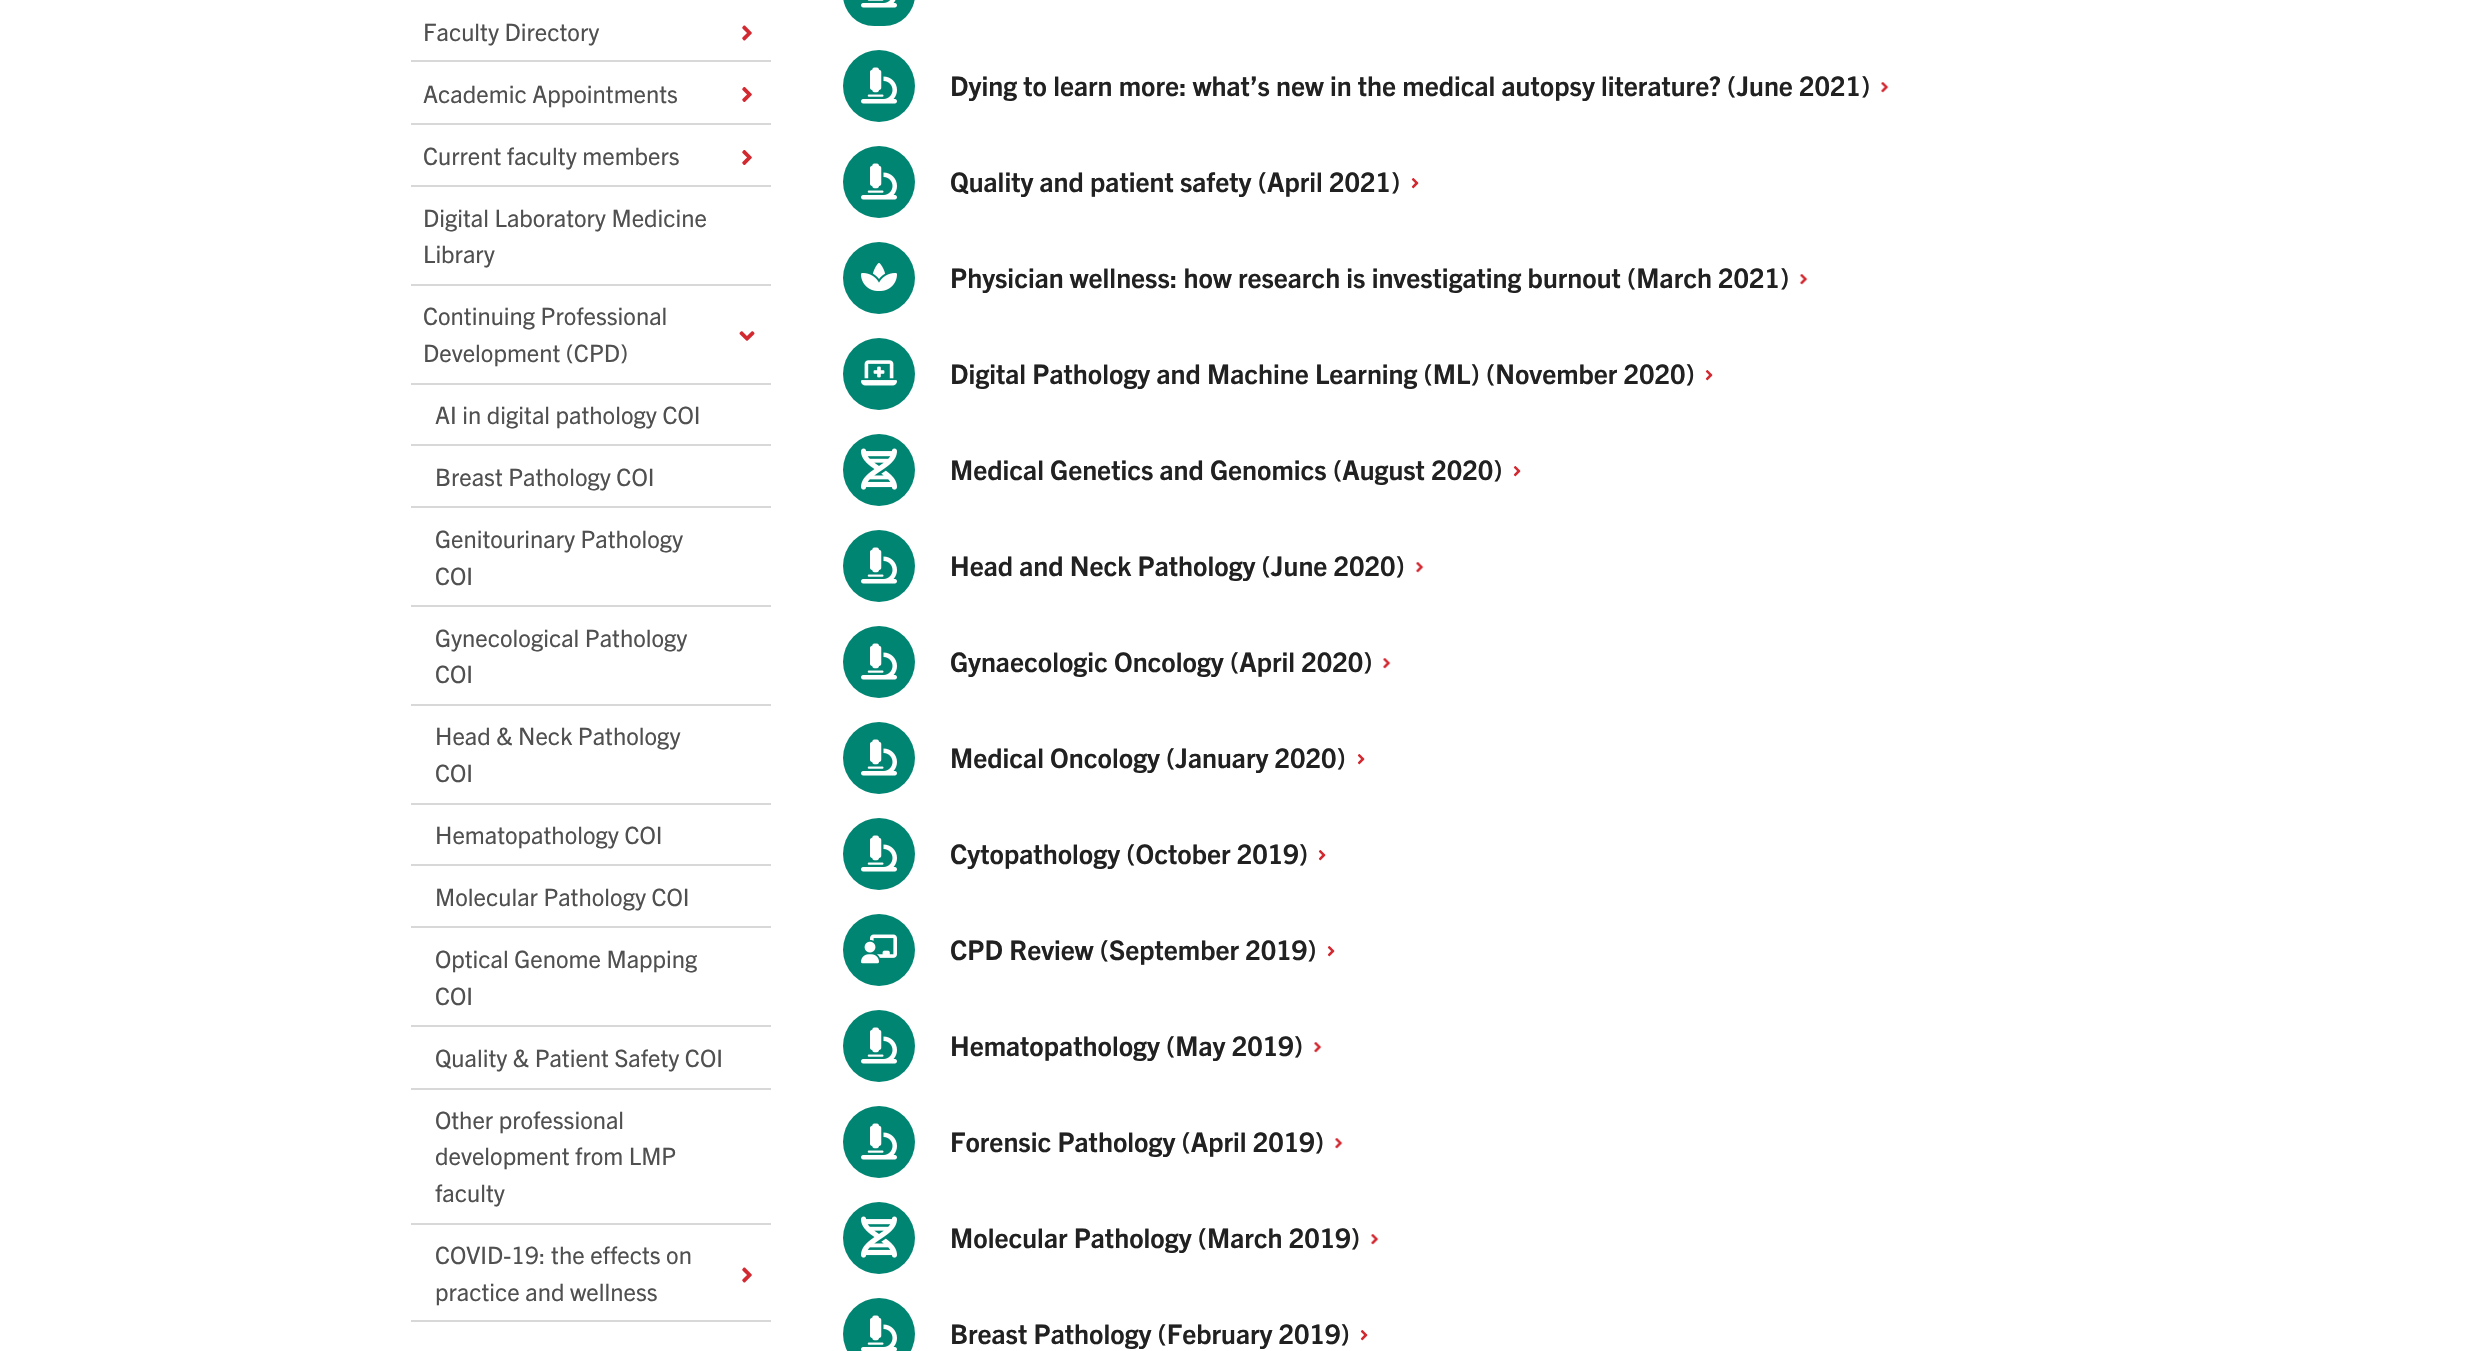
void draw(SkCanvas* canvas) {
  SkPaint paint;
  paint.setAntiAlias(true);
  auto face = [&](const char* family, int weight, float size, bool italic = false) {
    SkFontStyle style(weight, SkFontStyle::kNormal_Width,
      italic ? SkFontStyle::kItalic_Slant : SkFontStyle::kUpright_Slant);
    SkFont result(fontMgr->matchFamilyStyle(family, style), size);
    result.setSubpixel(true);
    return result;
  };
  auto paste = [&](const char* path, float x, float y, float w, float h) {
    auto image = SkImages::DeferredFromEncodedData(SkData::MakeFromFileName(path));
    canvas->drawImageRect(image, SkRect::MakeXYWH(x, y, w, h), SkSamplingOptions());
  };
  canvas->clear(0xffffffff);
  paint.setColor(0xffd8d8d8);
  canvas->drawRect(SkRect::MakeXYWH(411, 60, 360, 2), paint);
  paste("img/1.png", 742, 25, 10, 16);
  canvas->drawRect(SkRect::MakeXYWH(411, 123, 360, 2), paint);
  paste("img/2.png", 742, 87, 10, 15);
  canvas->drawRect(SkRect::MakeXYWH(411, 185, 360, 2), paint);
  paste("img/2.png", 742, 150, 10, 15);
  canvas->drawRect(SkRect::MakeXYWH(411, 284, 360, 2), paint);
  canvas->drawRect(SkRect::MakeXYWH(411, 383, 360, 2), paint);
  paste("img/3.png", 739, 331, 16, 10);
  {
    const struct { float x, y, w, h; SkColor color; } items[] = {
      {411, 444, 360, 2, 0xffd8d8d8},
      {411, 506, 360, 2, 0xffd8d8d8},
      {411, 605, 360, 2, 0xffd8d8d8},
      {411, 704, 360, 2, 0xffd8d8d8},
      {411, 803, 360, 2, 0xffd8d8d8},
      {411, 864, 360, 2, 0xffd8d8d8},
      {411, 926, 360, 2, 0xffd8d8d8},
      {411, 1025, 360, 2, 0xffd8d8d8},
      {411, 1088, 360, 2, 0xffd8d8d8},
      {411, 1223, 360, 2, 0xffd8d8d8},
      {411, 1320, 360, 2, 0xffd8d8d8},
    };
    for (auto [x, y, w, h, color] : items) {
      paint.setColor(color);
      canvas->drawRect(SkRect::MakeXYWH(x, y, w, h), paint);
    }
  }
  paste("img/1.png", 742, 1267, 10, 16);
  paint.setColor(0xff008572);
  canvas->drawRoundRect(SkRect::MakeXYWH(843, -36, 72, 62), 36, 36, paint);
  paste("img/4.png", 861, 0, 36, 8);
  canvas->drawCircle(879, 86, 36, paint);
  paste("img/5.png", 861, 67, 36, 37);
  paste("img/6.png", 1880, 82, 9, 11);
  canvas->drawCircle(879, 182, 36, paint);
  paste("img/5.png", 861, 163, 36, 37);
  paste("img/7.png", 1411, 178, 8, 11);
  canvas->drawCircle(879, 278, 36, paint);
  paste("img/8.png", 861, 263, 36, 28);
  paste("img/6.png", 1799, 274, 9, 11);
  canvas->drawCircle(879, 374, 36, paint);
  paste("img/9.png", 861, 360, 36, 26);
  paste("img/7.png", 1705, 370, 8, 11);
  canvas->drawCircle(879, 470, 36, paint);
  paste("img/10.png", 861, 448, 36, 42);
  paste("img/7.png", 1513, 466, 8, 11);
  canvas->drawCircle(879, 566, 36, paint);
  paste("img/5.png", 861, 547, 36, 37);
  paste("img/6.png", 1415, 562, 9, 11);
  canvas->drawCircle(879, 662, 36, paint);
  paste("img/5.png", 861, 643, 36, 37);
  paste("img/6.png", 1382, 658, 9, 11);
  canvas->drawCircle(879, 758, 36, paint);
  paste("img/5.png", 861, 739, 36, 37);
  paste("img/7.png", 1357, 754, 8, 11);
  canvas->drawCircle(879, 854, 36, paint);
  paste("img/5.png", 861, 835, 36, 37);
  paste("img/7.png", 1318, 850, 8, 11);
  canvas->drawCircle(879, 950, 36, paint);
  paste("img/11.png", 861, 934, 36, 30);
  paste("img/7.png", 1327, 946, 8, 11);
  canvas->drawCircle(879, 1046, 36, paint);
  paste("img/5.png", 861, 1027, 36, 37);
  paste("img/6.png", 1313, 1042, 9, 11);
  canvas->drawCircle(879, 1142, 36, paint);
  paste("img/5.png", 861, 1123, 36, 37);
  paste("img/6.png", 1334, 1138, 9, 11);
  canvas->drawCircle(879, 1238, 36, paint);
  paste("img/10.png", 861, 1216, 36, 42);
  paste("img/6.png", 1370, 1234, 9, 11);
  canvas->drawCircle(879, 1334, 36, paint);
  paste("img/12.png", 861, 1315, 36, 36);
  paste("img/7.png", 1360, 1330, 8, 11);
  auto f0 = face("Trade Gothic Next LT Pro", 400, 24);
  paint.setColor(0xff505050);
  {
    const struct { const char* s; float x, y; } items[] = {
      {"Faculty Directory", 423, 41},
      {"Academic Appointments", 423, 103},
      {"Current faculty members", 423, 165},
      {"Digital Laboratory Medicine", 423, 227},
      {"Library", 423, 263},
      {"Continuing Professional", 423, 325},
      {"Development (CPD)", 423, 362},
      {"AI in digital pathology COI", 435, 424},
      {"Breast Pathology COI", 435, 486},
      {"Genitourinary Pathology", 435, 548},
      {"COI", 435, 585},
      {"Gynecological Pathology", 435, 647},
      {"COI", 435, 683},
      {"Head & Neck Pathology", 435, 745},
      {"COI", 435, 782},
      {"Hematopathology COI", 435, 844},
      {"Molecular Pathology COI", 435, 906},
      {"Optical Genome Mapping", 435, 968},
      {"COI", 435, 1005},
      {"Quality & Patient Safety COI", 435, 1067},
      {"Other professional", 435, 1129},
      {"development from LMP", 435, 1165},
      {"faculty", 435, 1202},
      {"COVID-19: the effects on", 435, 1264},
      {"practice and wellness", 435, 1301},
    };
    for (auto [s, x, y] : items) {
      canvas->drawString(s, x, y, f0, paint);
    }
  }
  auto f1 = face("Trade Gothic Next LT Pro", 700, 27);
  paint.setColor(0xff212121);
  {
    const struct { const char* s; float x, y; } items[] = {
      {"Dying to learn more: what’s new in the medical autopsy literature? (June 2021)", 950, 96},
      {"Quality and patient safety (April 2021)", 950, 192},
      {"Physician wellness: how research is investigating burnout (March 2021)", 950, 288},
      {"Digital Pathology and Machine Learning (ML) (November 2020)", 950, 384},
      {"Medical Genetics and Genomics (August 2020)", 950, 480},
      {"Head and Neck Pathology (June 2020)", 950, 576},
      {"Gynaecologic Oncology (April 2020)", 950, 672},
      {"Medical Oncology (January 2020)", 950, 768},
      {"Cytopathology (October 2019)", 950, 864},
      {"CPD Review (September 2019)", 950, 960},
      {"Hematopathology (May 2019)", 950, 1056},
      {"Forensic Pathology (April 2019)", 950, 1152},
      {"Molecular Pathology (March 2019)", 950, 1248},
      {"Breast Pathology (February 2019)", 950, 1344},
    };
    for (auto [s, x, y] : items) {
      canvas->drawString(s, x, y, f1, paint);
    }
  }
}
